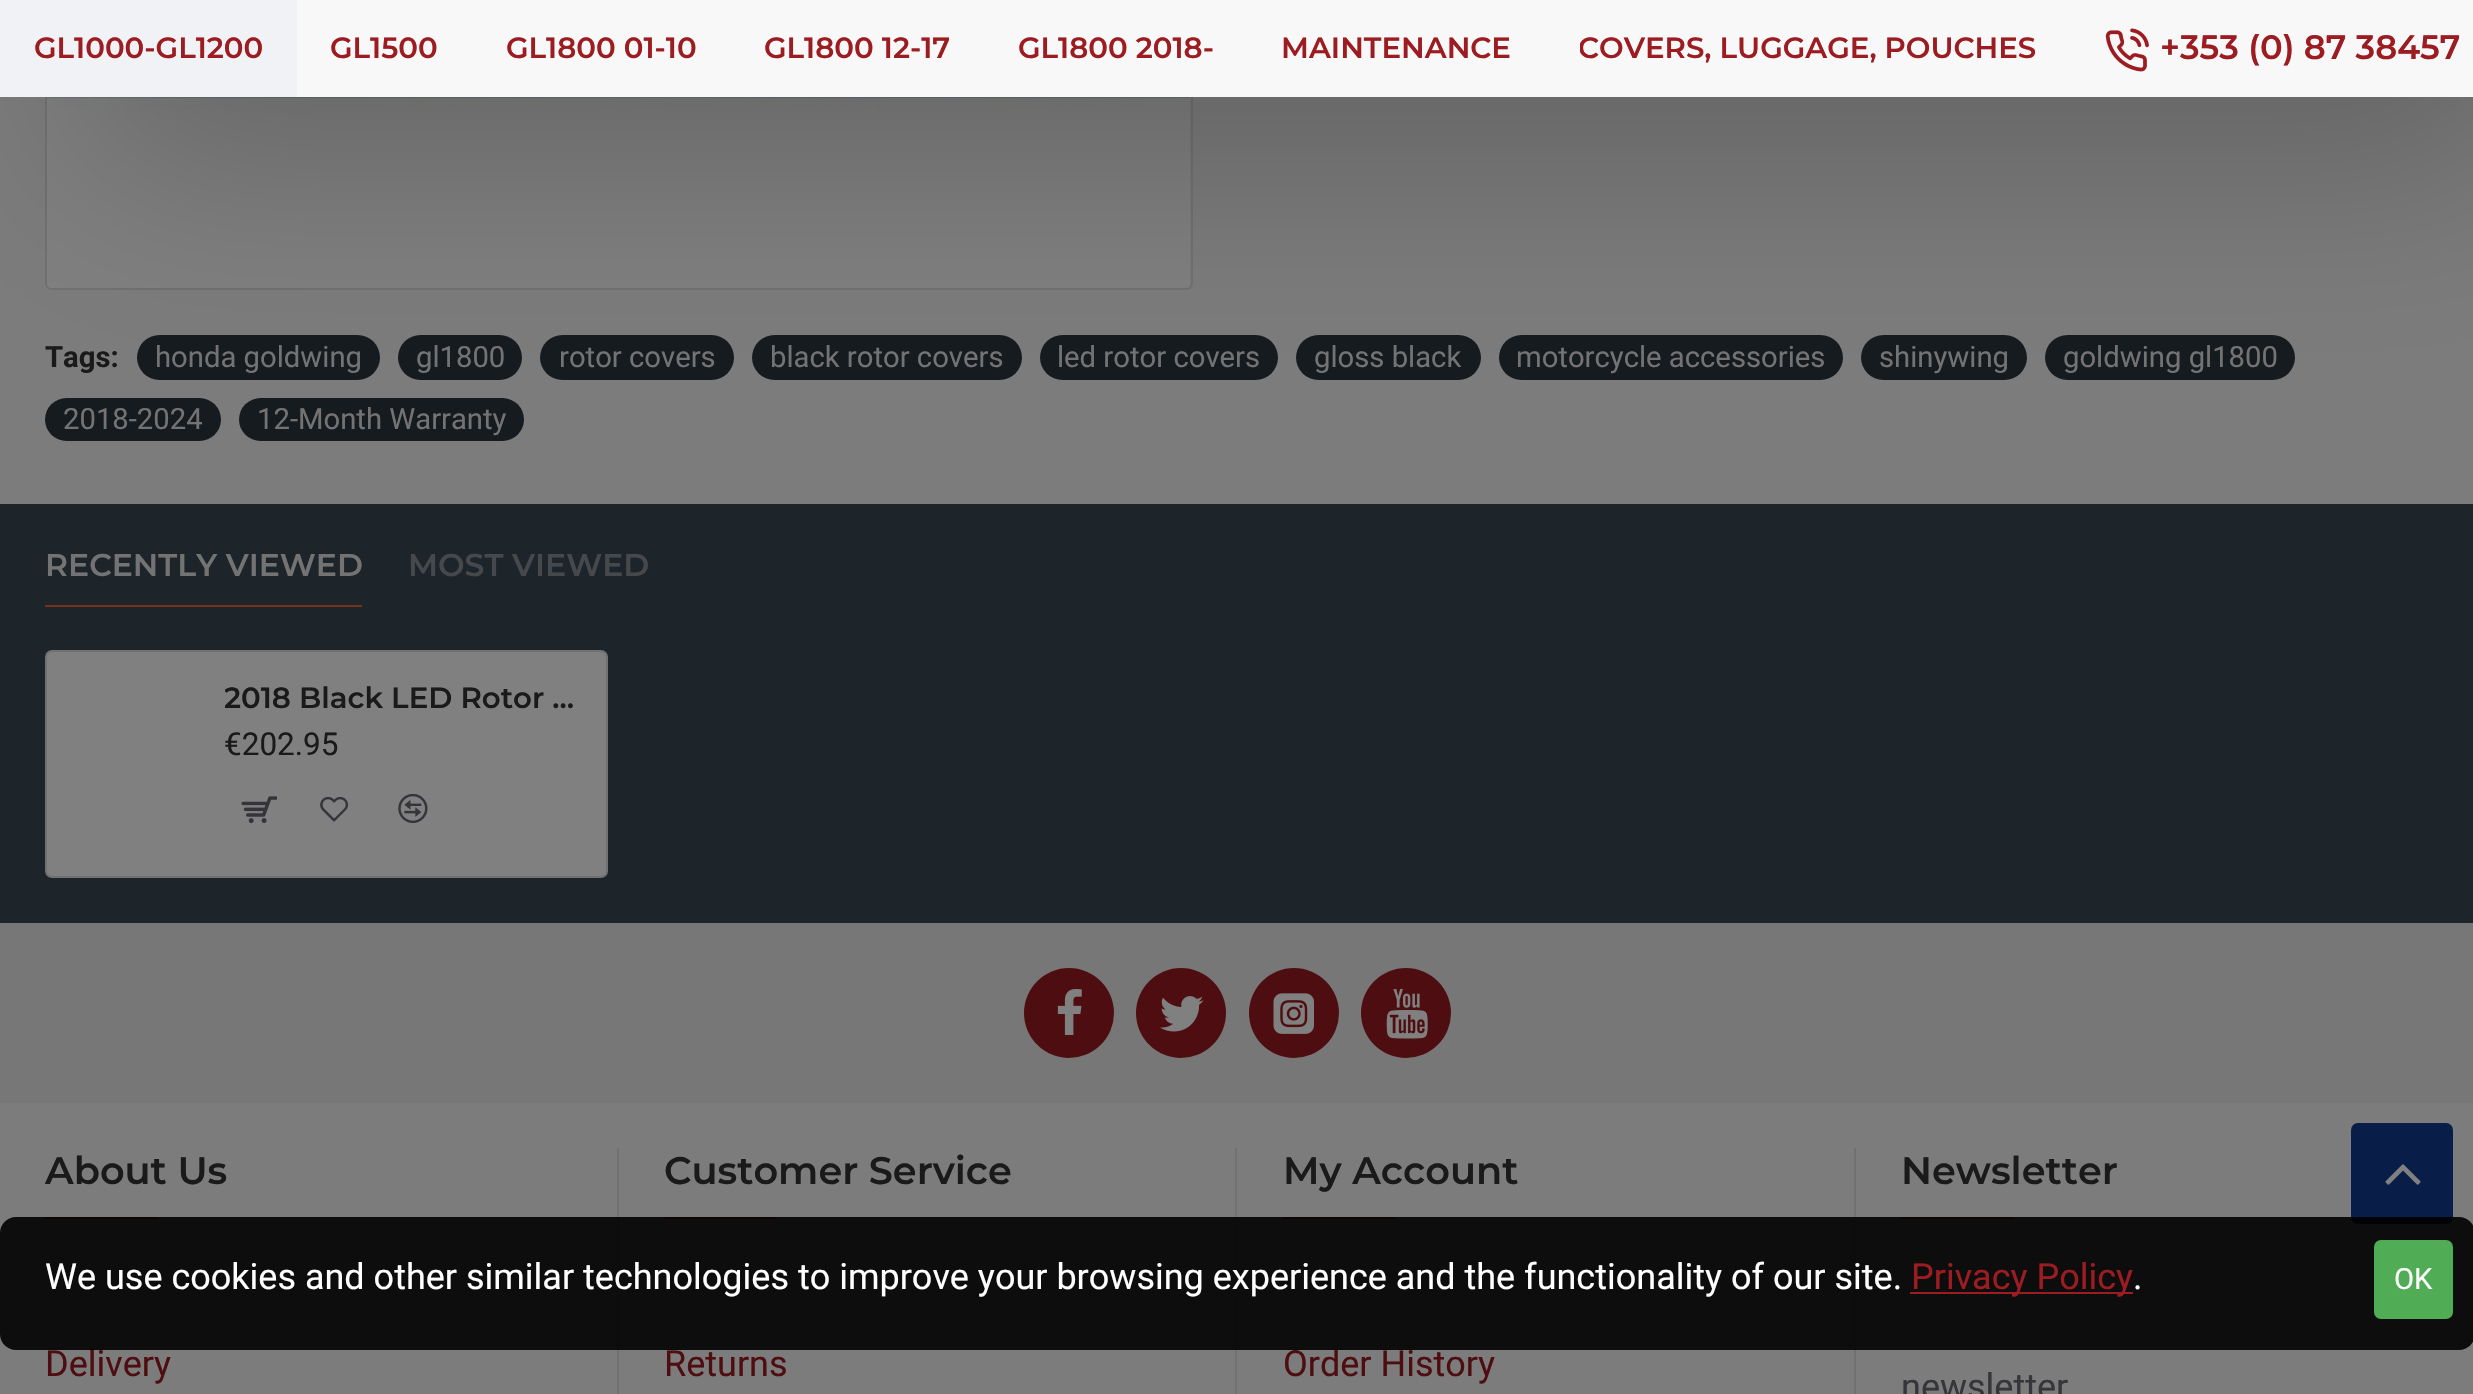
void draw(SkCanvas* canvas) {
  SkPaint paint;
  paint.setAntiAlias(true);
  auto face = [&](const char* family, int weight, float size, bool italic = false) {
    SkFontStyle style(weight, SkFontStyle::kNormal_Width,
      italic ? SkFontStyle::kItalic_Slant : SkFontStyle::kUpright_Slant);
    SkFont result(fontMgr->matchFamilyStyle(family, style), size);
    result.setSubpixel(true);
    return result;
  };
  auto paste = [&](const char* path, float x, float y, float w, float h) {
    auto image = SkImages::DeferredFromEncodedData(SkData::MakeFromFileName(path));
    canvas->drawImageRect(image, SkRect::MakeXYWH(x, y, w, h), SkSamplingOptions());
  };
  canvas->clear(0xff7c7c7c);
  paint.setStroke(true);
  paint.setStrokeWidth(2);
  paint.setColor(0xff717171);
  canvas->drawRoundRect(SkRect::MakeXYWH(46, -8, 1146, 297), 6, 6, paint);
  paste("img/2.png", 47, 97, 1143, 191);
  paint.setStroke(false);
  paint.setColor(0xff161b20);
  canvas->drawRoundRect(SkRect::MakeXYWH(137, 335, 243, 45), 22.5f, 22.5f, paint);
  canvas->drawRoundRect(SkRect::MakeXYWH(398, 335, 124, 45), 22.5f, 22.5f, paint);
  canvas->drawRoundRect(SkRect::MakeXYWH(540, 335, 194, 45), 22.5f, 22.5f, paint);
  canvas->drawRoundRect(SkRect::MakeXYWH(752, 335, 270, 45), 22.5f, 22.5f, paint);
  canvas->drawRoundRect(SkRect::MakeXYWH(1040, 335, 238, 45), 22.5f, 22.5f, paint);
  canvas->drawRoundRect(SkRect::MakeXYWH(1296, 335, 185, 45), 22.5f, 22.5f, paint);
  canvas->drawRoundRect(SkRect::MakeXYWH(1499, 335, 344, 45), 22.5f, 22.5f, paint);
  canvas->drawRoundRect(SkRect::MakeXYWH(1861, 335, 166, 45), 22.5f, 22.5f, paint);
  canvas->drawRoundRect(SkRect::MakeXYWH(2045, 335, 250, 45), 22.5f, 22.5f, paint);
  canvas->drawRoundRect(SkRect::MakeXYWH(45, 398, 176, 43), 21.5f, 21.5f, paint);
  canvas->drawRoundRect(SkRect::MakeXYWH(239, 398, 285, 43), 21.5f, 21.5f, paint);
  paint.setColor(0x33000000);
  paint.setMaskFilter(SkMaskFilter::MakeBlur(kNormal_SkBlurStyle, 101));
  canvas->drawRect(SkRect::MakeXYWH(90, -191, 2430, 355), paint);
  paint.setMaskFilter(nullptr);
  paint.setColor(0xfff8f8f8);
  canvas->drawRect(SkRect::MakeXYWH(297, 0, 2176, 97), paint);
  paint.setColor(0xfff0f2f5);
  canvas->drawRect(SkRect::MakeXYWH(0, 0, 297, 97), paint);
  paste("img/1.png", 2105, 28, 44, 44);
  paint.setColor(0xff1d242a);
  canvas->drawRect(SkRect::MakeXYWH(0, 504, 2473, 419), paint);
  paint.setColor(0xff753319);
  canvas->drawRect(SkRect::MakeXYWH(45, 605, 317, 2), paint);
  paint.setColor(0xff808080);
  canvas->drawRoundRect(SkRect::MakeXYWH(46, 651, 561, 226), 6, 6, paint);
  paint.setStroke(true);
  paint.setColor(0xff717171);
  canvas->drawRoundRect(SkRect::MakeXYWH(46, 651, 561, 226), 6, 6, paint);
  paste("img/3.png", 241, 796, 36, 28);
  paste("img/4.png", 320, 796, 29, 26);
  paste("img/5.png", 398, 794, 30, 30);
  paint.setStroke(false);
  paint.setColor(0xff777777);
  canvas->drawRect(SkRect::MakeXYWH(0, 923, 2473, 180), paint);
  paint.setColor(0xff4e0e11);
  canvas->drawCircle(1069, 1013, 45, paint);
  paste("img/6.png", 1057, 989, 25, 46);
  canvas->drawCircle(1181, 1013, 45, paint);
  paste("img/7.png", 1160, 996, 44, 36);
  canvas->drawCircle(1294, 1013, 45, paint);
  paste("img/8.png", 1273, 993, 41, 41);
  canvas->drawCircle(1406, 1013, 45, paint);
  paste("img/9.png", 1386, 989, 42, 50);
  {
    const struct { float x, y, w, h; SkColor color; } items[] = {
      {617, 1148, 2, 246, 0xff717171},
      {45, 1217, 113, 2, 0xff753319},
      {1235, 1148, 2, 246, 0xff717171},
      {664, 1217, 112, 2, 0xff753319},
      {1854, 1148, 2, 246, 0xff717171},
      {1283, 1217, 112, 2, 0xff753319},
      {1901, 1217, 113, 2, 0xff753319},
    };
    for (auto [x, y, w, h, color] : items) {
      paint.setColor(color);
      canvas->drawRect(SkRect::MakeXYWH(x, y, w, h), paint);
    }
  }
  paint.setColor(0xff081d47);
  canvas->drawRoundRect(SkRect::MakeXYWH(2351, 1123, 102, 101), 7, 7, paint);
  paste("img/10.png", 2385, 1164, 36, 21);
  auto f0 = face("Montserrat", 100, 29.25f);
  paint.setColor(0xff9c1c21);
  {
    const struct { const char* s; float x, y; } items[] = {
      {"GL1000-GL1200", 34, 58},
      {"GL1500", 330, 58},
      {"GL1800 01-10", 506, 58},
      {"GL1800 12-17", 764, 58},
      {"GL1800 2018-", 1018, 58},
      {"MAINTENANCE", 1281, 58},
    };
    for (auto [s, x, y] : items) {
      canvas->drawString(s, x, y, f0, paint);
    }
  }
  canvas->save();
  canvas->clipRect(SkRect::MakeXYWH(1580, 27, 456, 43));
  canvas->drawString("COVERS, LUGGAGE, POUCHES", 1578, 58, f0, paint);
  canvas->restore();
  auto f1 = face("Montserrat", 100, 33.75f);
  canvas->drawString("+353 (0) 87 38457", 2160, 59, f1, paint);
  auto f2 = face("Roboto", 700, 29.25f);
  paint.setColor(0xff1a1a1a);
  canvas->drawString("Tags:", 45, 367, f2, paint);
  auto f3 = face("Roboto", 400, 29.25f);
  paint.setColor(0xff737373);
  {
    const struct { const char* s; float x, y; } items[] = {
      {"honda goldwing", 155, 367},
      {"gl1800", 416, 367},
      {"rotor covers", 559, 367},
      {"black rotor covers", 770, 367},
      {"led rotor covers", 1057, 367},
      {"gloss black", 1314, 367},
      {"motorcycle accessories", 1516, 367},
      {"shinywing", 1879, 367},
      {"goldwing gl1800", 2063, 367},
      {"2018-2024", 63, 429},
      {"12-Month Warranty", 257, 429},
    };
    for (auto [s, x, y] : items) {
      canvas->drawString(s, x, y, f3, paint);
    }
  }
  auto f4 = face("Montserrat", 100, 31.5f);
  canvas->drawString("RECENTLY VIEWED", 45, 576, f4, paint);
  paint.setColor(0xff46494c);
  canvas->drawString("MOST VIEWED", 408, 576, f4, paint);
  canvas->save();
  canvas->clipRect(SkRect::MakeXYWH(225, 680, 353, 38));
  paint.setColor(0xff1a1a1a);
  canvas->drawString("2018 Black LED Rotor …", 224, 708, f0, paint);
  canvas->restore();
  auto f5 = face("Roboto", 400, 31.5f);
  canvas->drawString("€202.95", 224, 755, f5, paint);
  auto f6 = face("Montserrat", 100, 38.25f);
  canvas->drawString("About Us", 45, 1184, f6, paint);
  auto f7 = face("Roboto", 400, 36);
  paint.setColor(0xff4e0e11);
  canvas->drawString("Delivery", 45, 1376, f7, paint);
  paint.setColor(0xff1a1a1a);
  canvas->drawString("Customer Service", 664, 1184, f6, paint);
  paint.setColor(0xff4e0e11);
  canvas->drawString("Returns", 664, 1376, f7, paint);
  paint.setColor(0xff1a1a1a);
  canvas->drawString("My Account", 1283, 1184, f6, paint);
  paint.setColor(0xff4e0e11);
  canvas->drawString("Order History", 1283, 1376, f7, paint);
  paint.setColor(0xff1a1a1a);
  canvas->drawString("Newsletter", 1901, 1184, f6, paint);
  paint.setColor(0xff35353a);
  canvas->drawString("newsletter", 1901, 1399, f7, paint);
  paint.setColor(0xe6000000);
  canvas->drawRoundRect(SkRect::MakeXYWH(0, 1217, 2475, 133), 16, 16, paint);
  paint.setColor(0xffffffff);
  canvas->drawString("We use cookies and other similar technologies to improve your browsing experience and the functionality of our site.", 45, 1289, f7, paint);
  paint.setColor(0xff9c1c21);
  canvas->drawRect(SkRect::MakeXYWH(1910, 1292, 223, 2), paint);
  canvas->drawString("Privacy Policy", 1911, 1289, f7, paint);
  paint.setColor(0xffffffff);
  canvas->drawString(".", 2133, 1289, f7, paint);
  paint.setColor(0xff50ad55);
  canvas->drawRoundRect(SkRect::MakeXYWH(2374, 1240, 79, 79), 7, 7, paint);
  paint.setColor(0xffffffff);
  canvas->drawString("OK", 2394, 1289, f3, paint);
}
